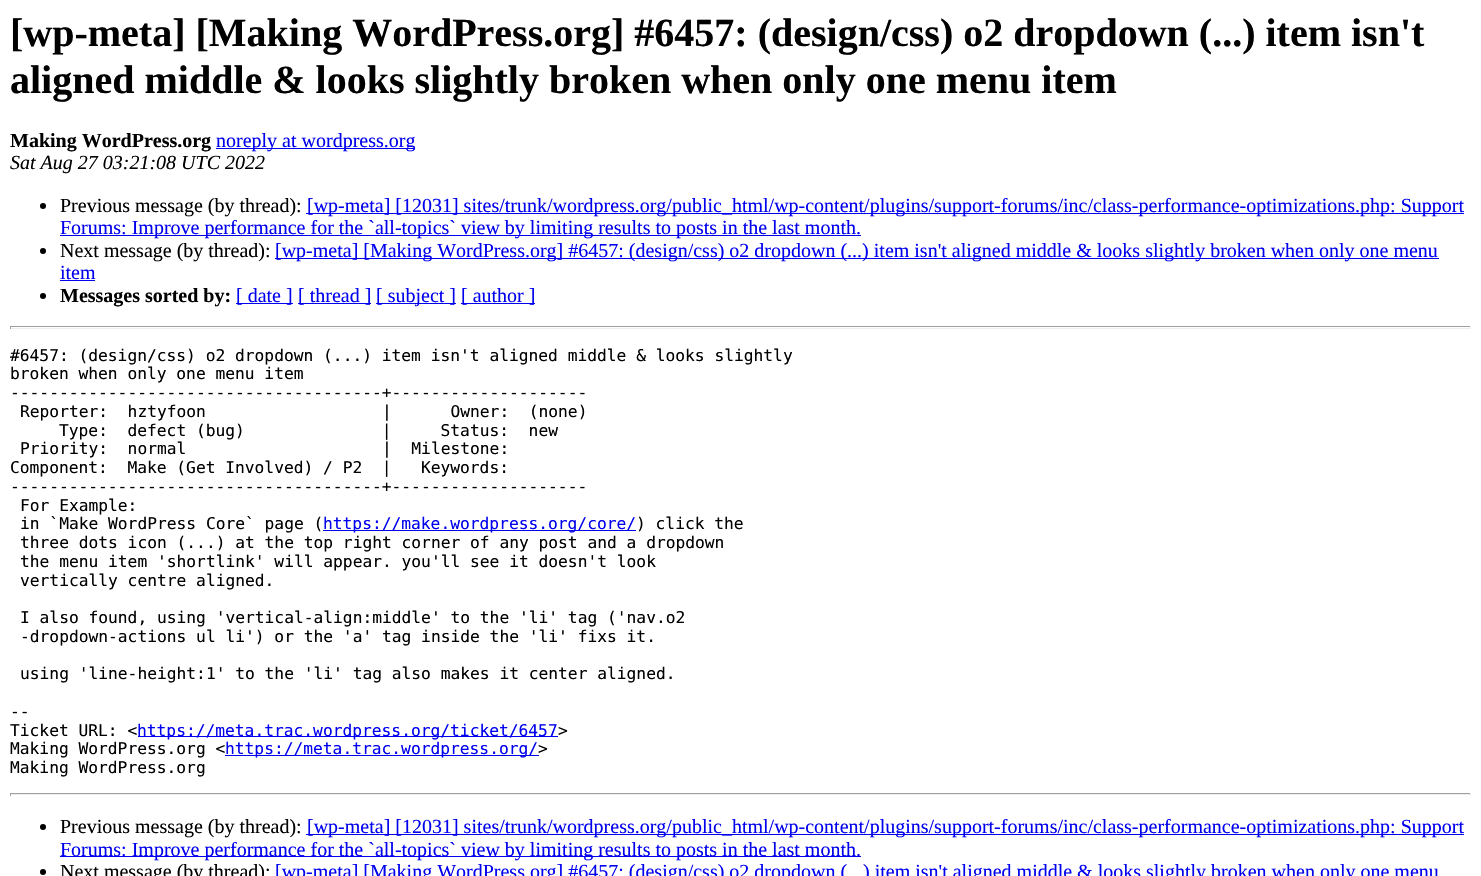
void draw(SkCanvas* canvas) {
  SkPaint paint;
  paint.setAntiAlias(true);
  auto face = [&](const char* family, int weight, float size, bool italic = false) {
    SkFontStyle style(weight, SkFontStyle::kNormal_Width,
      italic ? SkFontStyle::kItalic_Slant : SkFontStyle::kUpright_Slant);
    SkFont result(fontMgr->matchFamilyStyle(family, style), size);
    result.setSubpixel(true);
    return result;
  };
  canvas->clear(0xffffffff);
  paint.setColor(0xff0000ee);
  canvas->drawRect(SkRect::MakeXYWH(216, 148, 199, 1), paint);
  paint.setColor(0xff000000);
  canvas->drawCircle(43, 206, 3, paint);
  paint.setColor(0xff0000ee);
  canvas->drawRect(SkRect::MakeXYWH(306, 213, 1158, 1), paint);
  canvas->drawRect(SkRect::MakeXYWH(60, 235, 801, 1), paint);
  paint.setColor(0xff000000);
  canvas->drawCircle(43, 251, 3, paint);
  paint.setColor(0xff0000ee);
  canvas->drawRect(SkRect::MakeXYWH(275, 258, 1164, 1), paint);
  canvas->drawRect(SkRect::MakeXYWH(60, 280, 35, 1), paint);
  paint.setColor(0xff000000);
  canvas->drawCircle(43, 296, 3, paint);
  {
    const struct { float x, y, w, h; SkColor color; } items[] = {
      {236, 303, 57, 1, 0xff0000ee},
      {298, 303, 73, 1, 0xff0000ee},
      {376, 303, 80, 1, 0xff0000ee},
      {461, 303, 74, 1, 0xff0000ee},
      {10, 326, 1461, 1, 0xff9f9f9f},
      {1470, 326, 1, 3, 0xffeeeeee},
      {10, 328, 1461, 1, 0xffeeeeee},
      {10, 326, 1, 3, 0xff9f9f9f},
      {323, 530, 313, 1, 0xff0000ee},
      {138, 736, 420, 1, 0xff0000ee},
      {225, 755, 314, 1, 0xff0000ee},
      {10, 793, 1461, 1, 0xff9f9f9f},
      {1470, 793, 1, 3, 0xffeeeeee},
      {10, 794, 1461, 1, 0xffeeeeee},
      {10, 793, 1, 3, 0xff9f9f9f},
    };
    for (auto [x, y, w, h, color] : items) {
      paint.setColor(color);
      canvas->drawRect(SkRect::MakeXYWH(x, y, w, h), paint);
    }
  }
  paint.setColor(0xff000000);
  canvas->drawCircle(43, 827, 3, paint);
  paint.setColor(0xff0000ee);
  canvas->drawRect(SkRect::MakeXYWH(306, 834, 1158, 1), paint);
  canvas->drawRect(SkRect::MakeXYWH(60, 856, 801, 1), paint);
  paint.setColor(0xff000000);
  canvas->drawCircle(43, 872, 3, paint);
  auto f0 = face("Liberation Serif", 700, 40);
  canvas->drawString("[wp-meta] [Making WordPress.org] #6457: (design/css) o2 dropdown (...) item isn't", 10, 46, f0, paint);
  canvas->drawString("aligned middle & looks slightly broken when only one menu item", 10, 93, f0, paint);
  auto f1 = face("Liberation Serif", 700, 20);
  canvas->drawString("Making WordPress.org", 10, 147, f1, paint);
  auto f2 = face("Liberation Serif", 400, 20);
  paint.setColor(0xff0000ee);
  canvas->drawString("noreply at wordpress.org", 216, 147, f2, paint);
  auto f3 = face("Liberation Serif", 400, 20, true);
  paint.setColor(0xff000000);
  canvas->drawString("Sat Aug 27 03:21:08 UTC 2022", 10, 169, f3, paint);
  canvas->drawString("Previous message (by thread):", 60, 212, f2, paint);
  paint.setColor(0xff0000ee);
  canvas->drawString("[wp-meta] [12031] sites/trunk/wordpress.org/public_html/wp-content/plugins/support-forums/inc/class-performance-optimizations.php: Support", 307, 212, f2, paint);
  canvas->drawString("Forums: Improve performance for the `all-topics` view by limiting results to posts in the last month.", 60, 234, f2, paint);
  paint.setColor(0xff000000);
  canvas->drawString("Next message (by thread):", 60, 257, f2, paint);
  paint.setColor(0xff0000ee);
  canvas->drawString("[wp-meta] [Making WordPress.org] #6457: (design/css) o2 dropdown (...) item isn't aligned middle & looks slightly broken when only one menu", 275, 257, f2, paint);
  canvas->drawString("item", 60, 279, f2, paint);
  paint.setColor(0xff000000);
  canvas->drawString("Messages sorted by:", 60, 302, f1, paint);
  paint.setColor(0xff0000ee);
  {
    const struct { const char* s; float x, y; } items[] = {
      {"[ date ]", 236, 302},
      {"[ thread ]", 298, 302},
      {"[ subject ]", 376, 302},
      {"[ author ]", 461, 302},
    };
    for (auto [s, x, y] : items) {
      canvas->drawString(s, x, y, f2, paint);
    }
  }
  auto f4 = face("DejaVu Sans Mono", 400, 16.25f);
  paint.setColor(0xff000000);
  {
    const struct { const char* s; float x, y; } items[] = {
      {"#6457: (design/css) o2 dropdown (...) item isn't aligned middle & looks slightly", 10, 361},
      {"broken when only one menu item", 10, 379},
      {"--------------------------------------+--------------------", 10, 398},
      {"Reporter:  hztyfoon                  |      Owner:  (none)", 20, 417},
      {"Type:  defect (bug)              |     Status:  new", 59, 436},
      {"Priority:  normal                    |  Milestone:", 20, 454},
      {"Component:  Make (Get Involved) / P2  |   Keywords:", 10, 473},
      {"--------------------------------------+--------------------", 10, 492},
      {"For Example:", 20, 511},
      {"in `Make WordPress Core` page (", 20, 529},
    };
    for (auto [s, x, y] : items) {
      canvas->drawString(s, x, y, f4, paint);
    }
  }
  paint.setColor(0xff0000ee);
  canvas->drawString("https://make.wordpress.org/core/", 323, 529, f4, paint);
  paint.setColor(0xff000000);
  {
    const struct { const char* s; float x, y; } items[] = {
      {") click the", 636, 529},
      {"three dots icon (...) at the top right corner of any post and a dropdown", 20, 548},
      {"the menu item 'shortlink' will appear. you'll see it doesn't look", 20, 567},
      {"vertically centre aligned.", 20, 586},
      {"I also found, using 'vertical-align:middle' to the 'li' tag ('nav.o2", 20, 623},
      {"-dropdown-actions ul li') or the 'a' tag inside the 'li' fixs it.", 20, 642},
      {"using 'line-height:1' to the 'li' tag also makes it center aligned.", 20, 679},
      {"--", 10, 717},
      {"Ticket URL: <", 10, 736},
    };
    for (auto [s, x, y] : items) {
      canvas->drawString(s, x, y, f4, paint);
    }
  }
  paint.setColor(0xff0000ee);
  canvas->drawString("https://meta.trac.wordpress.org/ticket/6457", 137, 736, f4, paint);
  paint.setColor(0xff000000);
  canvas->drawString(">", 558, 736, f4, paint);
  canvas->drawString("Making WordPress.org <", 10, 754, f4, paint);
  paint.setColor(0xff0000ee);
  canvas->drawString("https://meta.trac.wordpress.org/", 225, 754, f4, paint);
  paint.setColor(0xff000000);
  canvas->drawString(">", 538, 754, f4, paint);
  canvas->drawString("Making WordPress.org", 10, 773, f4, paint);
  canvas->drawString("Previous message (by thread):", 60, 833, f2, paint);
  paint.setColor(0xff0000ee);
  canvas->drawString("[wp-meta] [12031] sites/trunk/wordpress.org/public_html/wp-content/plugins/support-forums/inc/class-performance-optimizations.php: Support", 307, 833, f2, paint);
  canvas->drawString("Forums: Improve performance for the `all-topics` view by limiting results to posts in the last month.", 60, 856, f2, paint);
  paint.setColor(0xff000000);
  canvas->drawString("Next message (by thread):", 60, 878, f2, paint);
  paint.setColor(0xff0000ee);
  canvas->drawString("[wp-meta] [Making WordPress.org] #6457: (design/css) o2 dropdown (", 275, 878, f2, paint);
  canvas->drawString(") item isn't aligned middle & looks slightly broken when only one menu", 863, 878, f2, paint);
}
